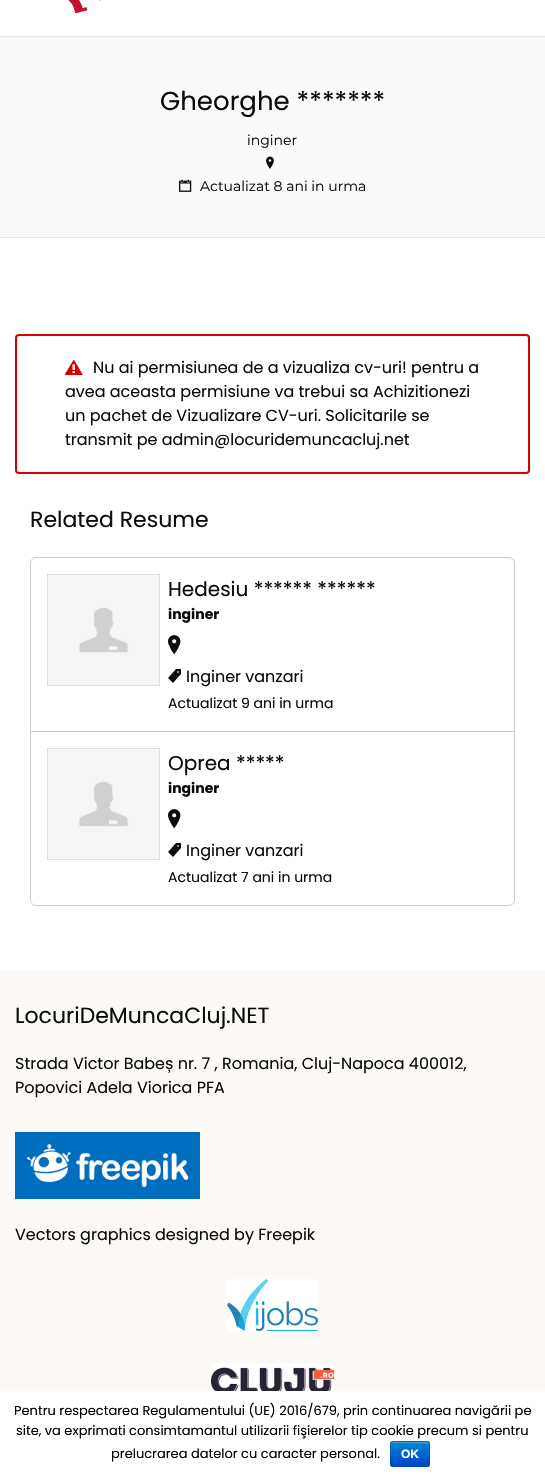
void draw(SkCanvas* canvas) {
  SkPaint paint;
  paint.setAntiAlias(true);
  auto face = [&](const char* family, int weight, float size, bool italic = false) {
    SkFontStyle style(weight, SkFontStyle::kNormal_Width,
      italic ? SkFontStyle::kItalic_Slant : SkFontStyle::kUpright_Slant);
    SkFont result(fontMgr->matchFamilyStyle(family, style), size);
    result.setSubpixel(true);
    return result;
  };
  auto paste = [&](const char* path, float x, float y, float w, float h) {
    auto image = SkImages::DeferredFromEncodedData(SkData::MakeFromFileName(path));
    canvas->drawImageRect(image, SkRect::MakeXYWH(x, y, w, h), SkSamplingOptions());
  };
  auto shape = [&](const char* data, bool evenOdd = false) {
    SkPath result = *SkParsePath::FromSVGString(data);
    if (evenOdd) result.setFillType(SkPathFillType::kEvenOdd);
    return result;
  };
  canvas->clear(0xffffffff);
  paint.setColor(0xffe6e6e6);
  canvas->drawRect(SkRect::MakeXYWH(0, 36, 545, 1), paint);
  paste("img/1.png", 68, 0, 33, 13);
  paint.setColor(0xfffafafa);
  canvas->drawRect(SkRect::MakeXYWH(0, 37, 545, 200), paint);
  paint.setColor(0xffe7e7e7);
  canvas->drawRect(SkRect::MakeXYWH(0, 237, 545, 1), paint);
  paste("img/2.png", 266, 156, 8, 13);
  paste("img/3.png", 179, 179, 13, 13);
  paint.setStroke(true);
  paint.setStrokeWidth(2);
  paint.setColor(0xffd50000);
  canvas->drawRoundRect(SkRect::MakeXYWH(16, 335, 513, 138), 3, 3, paint);
  paste("img/4.png", 65, 360, 18, 15);
  paint.setStrokeWidth(1);
  paint.setColor(0xffcccccc);
  canvas->drawRoundRect(SkRect::MakeXYWH(30.5f, 557.5f, 484, 348), 5.5f, 5.5f, paint);
  paint.setStroke(false);
  canvas->drawRect(SkRect::MakeXYWH(31, 731, 483, 1), paint);
  paste("img/5.png", 47, 574, 113, 112);
  paste("img/6.png", 168, 635, 13, 20);
  paste("img/7.png", 168, 669, 13, 14);
  paste("img/5.png", 47, 748, 113, 112);
  paste("img/6.png", 168, 809, 13, 20);
  paste("img/7.png", 168, 843, 13, 14);
  paint.setColor(0xfffdf9f6);
  canvas->drawRect(SkRect::MakeXYWH(0, 970, 545, 421), paint);
  paste("img/8.png", 15, 1132, 185, 67);
  paste("img/9.png", 227, 1279, 91, 52);
  paste("img/10.png", 211, 1363, 123, 28);
  paint.setColor(0x0d000000);
  paint.setMaskFilter(SkMaskFilter::MakeBlur(kNormal_SkBlurStyle, 1));
  canvas->drawRoundRect(SkRect::MakeXYWH(390, 1442, 40, 26), 3, 3, paint);
  paint.setMaskFilter(nullptr);
  paint.setColor(0xff006dcc);
  canvas->drawRoundRect(SkRect::MakeXYWH(390, 1441, 40, 26), 3, 3, paint);
  canvas->save();
  canvas->clipPath(shape("M393 1441H427C428.5 1441 430 1442.5 430 1444V1464C430 1465.5 428.5 1467 427 1467H393C391.5 1467 390 1465.5 390 1464V1444C390 1442.5 391.5 1441 393 1441Z"), true);
  {
    const SkColor colors[] = {0xff0088cc, 0xff0044cc};
    const float stops[] = {0, 1};
    const SkPoint ends[] = {{410, 1442}, {410, 1466}};
    paint.setShader(SkGradientShader::MakeLinear(ends, colors, stops, 2, SkTileMode::kClamp));
    paint.setAlpha(255);
  }
  canvas->drawRect(SkRect::MakeXYWH(390, 1442, 40, 24), paint);
  canvas->restore();
  paint.setShader(nullptr);
  paint.setColor(0x33ffffff);
  canvas->drawPath(shape("M393 1443L427.5 1443.5C428 1443.5 428.5 1443.5 429 1444.5C429 1440.5 423 1442 421.5 1442H398.5C393.5 1442 391 1440.5 391 1445.5C391 1444 392 1443 393 1443ZM391 1464.5V1464Z", true), paint);
  paint.setStroke(true);
  paint.setColor(0x40000000);
  canvas->drawPath(shape("M429 1466L427 1466.5H393L391 1466"), paint);
  paint.setColor(0x1a000000);
  canvas->drawPath(shape("M391 1466C391 1465.5 390.5 1464.5 390.5 1464V1444C390.5 1443.5 391 1442.5 391 1442C391.5 1442 392.5 1441.5 393 1441.5H427C427.5 1441.5 428.5 1442 429 1442C429 1442.5 429.5 1443.5 429.5 1444V1464C429.5 1464.5 429 1465.5 429 1466"), paint);
  auto f0 = face("Poppins", 400, 26);
  paint.setStroke(false);
  paint.setColor(0xff080d07);
  canvas->drawString("Gheorghe *******", 160, 110, f0, paint);
  auto f1 = face("Montserrat", 400, 14);
  canvas->drawString("inginer", 247, 145, f1, paint);
  canvas->drawString("Actualizat 8 ani in urma", 200, 191, f1, paint);
  auto f2 = face("Poppins", 400, 16);
  {
    const struct { const char* s; float x, y; } items[] = {
      {"Nu ai permisiunea de a vizualiza cv-uri! pentru a", 93, 373},
      {"avea aceasta permisiune va trebui sa Achizitionezi", 65, 397},
      {"un pachet de Vizualizare CV-uri. Solicitarile se", 65, 421},
      {"transmit pe admin@locuridemuncacluj.net", 65, 445},
    };
    for (auto [s, x, y] : items) {
      canvas->drawString(s, x, y, f2, paint);
    }
  }
  auto f3 = face("Poppins", 400, 22);
  canvas->drawString("Related Resume", 30, 527, f3, paint);
  auto f4 = face("Poppins", 400, 20);
  canvas->drawString("Hedesiu ****** ******", 168, 596, f4, paint);
  auto f5 = face("Poppins", 700, 14);
  canvas->drawString("inginer", 168, 619, f5, paint);
  canvas->drawString("Inginer vanzari", 186, 682, f2, paint);
  auto f6 = face("Poppins", 400, 14);
  canvas->drawString("Actualizat 9 ani in urma", 168, 708, f6, paint);
  canvas->drawString("Oprea *****", 168, 770, f4, paint);
  canvas->drawString("inginer", 168, 793, f5, paint);
  canvas->drawString("Inginer vanzari", 186, 856, f2, paint);
  canvas->drawString("Actualizat 7 ani in urma", 168, 882, f6, paint);
  canvas->drawString("LocuriDeMuncaCluj.NET", 15, 1023, f3, paint);
  {
    const struct { const char* s; float x, y; } items[] = {
      {"Strada Victor Babeș nr. 7 , Romania, Cluj-Napoca 400012,", 15, 1069},
      {"Popovici Adela Viorica PFA", 15, 1093},
      {"Vectors graphics designed by Freepik", 15, 1240},
    };
    for (auto [s, x, y] : items) {
      canvas->drawString(s, x, y, f2, paint);
    }
  }
  auto f7 = face("Poppins", 400, 13);
  paint.setColor(0xff000000);
  {
    const struct { const char* s; float x, y; } items[] = {
      {"Pentru respectarea Regulamentului (UE) 2016/679, prin continuarea navigării pe", 14, 1415},
      {"site, va exprimati consimtamantul utilizarii fişierelor tip cookie precum si pentru", 16, 1435},
      {"prelucrarea datelor cu caracter personal.", 111, 1458},
    };
    for (auto [s, x, y] : items) {
      canvas->drawString(s, x, y, f7, paint);
    }
  }
  auto f8 = face("Liberation Sans", 700, 12);
  paint.setColor(0xffffffff);
  canvas->drawString("OK", 401, 1458, f8, paint);
}
